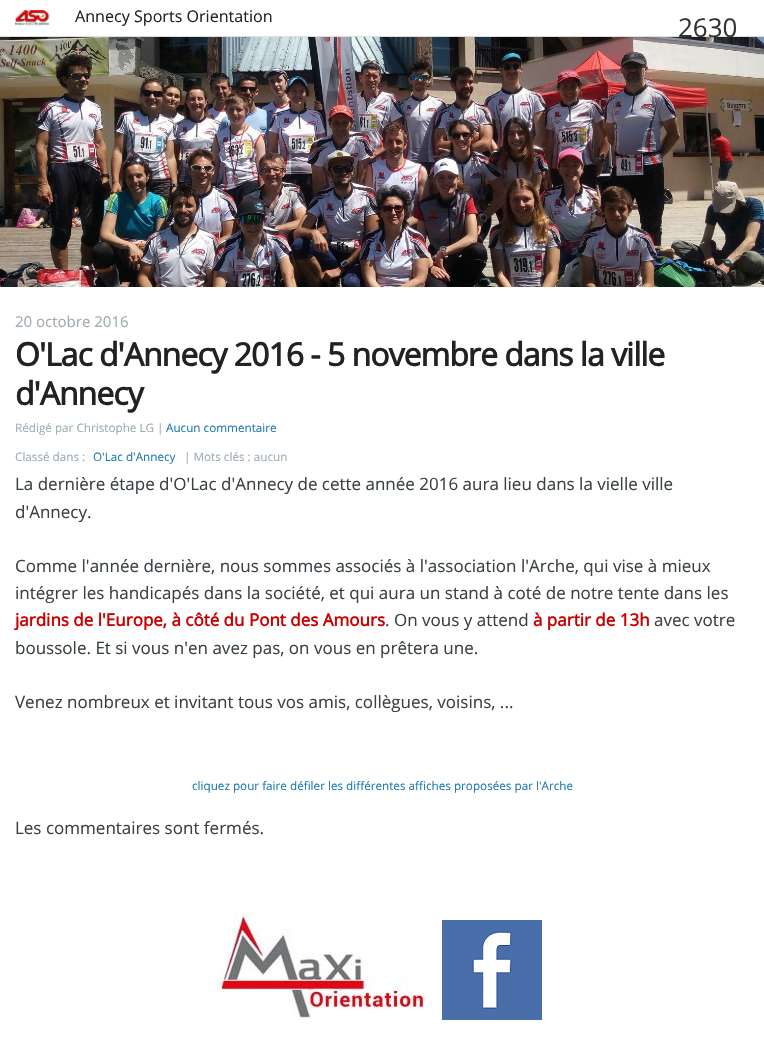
void draw(SkCanvas* canvas) {
  SkPaint paint;
  paint.setAntiAlias(true);
  auto face = [&](const char* family, int weight, float size, bool italic = false) {
    SkFontStyle style(weight, SkFontStyle::kNormal_Width,
      italic ? SkFontStyle::kItalic_Slant : SkFontStyle::kUpright_Slant);
    SkFont result(fontMgr->matchFamilyStyle(family, style), size);
    result.setSubpixel(true);
    return result;
  };
  auto writeSpaced = [&](const char* s, float x, float y, const SkFont& font, const SkPaint& ink, float letter, float word) {
    std::vector<SkGlyphID> glyphs(font.countText(s, strlen(s), SkTextEncoding::kUTF8));
    std::vector<float> xs(glyphs.size());
    font.textToGlyphs(s, strlen(s), SkTextEncoding::kUTF8, glyphs);
    font.getXPos(glyphs, xs, x);
    float extra = 0;
    for (size_t i = 0; i < glyphs.size(); i++) {
      xs[i] += extra;
      extra += letter + word * (glyphs[i] == font.unicharToGlyph(' '));
    }
    canvas->drawTextBlob(SkTextBlob::MakeFromPosHGlyphs(glyphs, xs, y, font), 0, 0, ink);
  };
  auto paste = [&](const char* path, float x, float y, float w, float h) {
    auto image = SkImages::DeferredFromEncodedData(SkData::MakeFromFileName(path));
    canvas->drawImageRect(image, SkRect::MakeXYWH(x, y, w, h), SkSamplingOptions());
  };
  canvas->clear(0xffffffff);
  paint.setColor(0xffdddddd);
  canvas->drawRect(SkRect::MakeXYWH(0, 36, 764, 1), paint);
  paste("img/1.png", 15, 10, 35, 16);
  paste("img/2.png", 0, 37, 764, 250);
  paste("img/3.png", 217, 913, 208, 106);
  paste("img/4.png", 442, 920, 100, 100);
  auto f0 = face("Open Sans", 400, 16.1f);
  paint.setColor(0xff222222);
  canvas->drawString("Annecy Sports Orientation", 75, 22, f0, paint);
  auto f1 = face("Open Sans", 400, 26);
  paint.setColor(0xff333333);
  canvas->drawString("2630", 678, 37, f1, paint);
  auto f2 = face("Open Sans", 400, 15);
  paint.setColor(0xff9eabb3);
  canvas->drawString("20 octobre 2016", 15, 327, f2, paint);
  auto f3 = face("Open Sans", 700, 32);
  paint.setColor(0xff222222);
  writeSpaced("O'Lac d'Annecy 2016 - 5 novembre dans la ville", 15, 366, f3, paint, -1, 0);
  writeSpaced("d'Annecy", 15, 405, f3, paint, -1, 0);
  auto f4 = face("Open Sans", 400, 11.7f);
  paint.setColor(0xff9eabb3);
  canvas->drawString("Rédigé par Christophe LG |", 15, 432, f4, paint);
  paint.setColor(0xff1f7ab7);
  canvas->drawString("Aucun commentaire", 166, 432, f4, paint);
  paint.setColor(0xff9eabb3);
  canvas->drawString("Classé dans :", 15, 461, f4, paint);
  paint.setColor(0xff1f7ab7);
  canvas->drawString("O'Lac d'Annecy", 93, 461, f4, paint);
  paint.setColor(0xff9eabb3);
  canvas->drawString("| Mots clés : aucun", 184, 461, f4, paint);
  auto f5 = face("Open Sans", 400, 17);
  paint.setColor(0xff3a4145);
  {
    const struct { const char* s; float x, y; } items[] = {
      {"La dernière étape d'O'Lac d'Annecy de cette année 2016 aura lieu dans la vielle ville", 15, 490},
      {"d'Annecy.", 15, 518},
      {"Comme l'année dernière, nous sommes associés à l'association l'Arche, qui vise à mieux", 15, 572},
      {"intégrer les handicapés dans la société, et qui aura un stand à coté de notre tente dans les", 15, 599},
    };
    for (auto [s, x, y] : items) {
      canvas->drawString(s, x, y, f5, paint);
    }
  }
  auto f6 = face("Open Sans", 700, 17);
  paint.setColor(0xffcc0000);
  canvas->drawString("jardins de l'Europe, à côté du Pont des Amours", 15, 626, f6, paint);
  paint.setColor(0xff3a4145);
  canvas->drawString(". On vous y attend", 385, 626, f5, paint);
  paint.setColor(0xffcc0000);
  canvas->drawString("à partir de 13h", 533, 626, f6, paint);
  paint.setColor(0xff3a4145);
  {
    const struct { const char* s; float x, y; } items[] = {
      {"avec votre", 654, 626},
      {"boussole. Et si vous n'en avez pas, on vous en prêtera une.", 15, 654},
      {"Venez nombreux et invitant tous vos amis, collègues, voisins, ...", 15, 708},
    };
    for (auto [s, x, y] : items) {
      canvas->drawString(s, x, y, f5, paint);
    }
  }
  paint.setColor(0xff1f7ab7);
  canvas->drawString("cliquez pour faire défiler les différentes affiches proposées par l'Arche", 192, 790, f4, paint);
  paint.setColor(0xff3a4145);
  canvas->drawString("Les commentaires sont fermés.", 15, 834, f5, paint);
}
